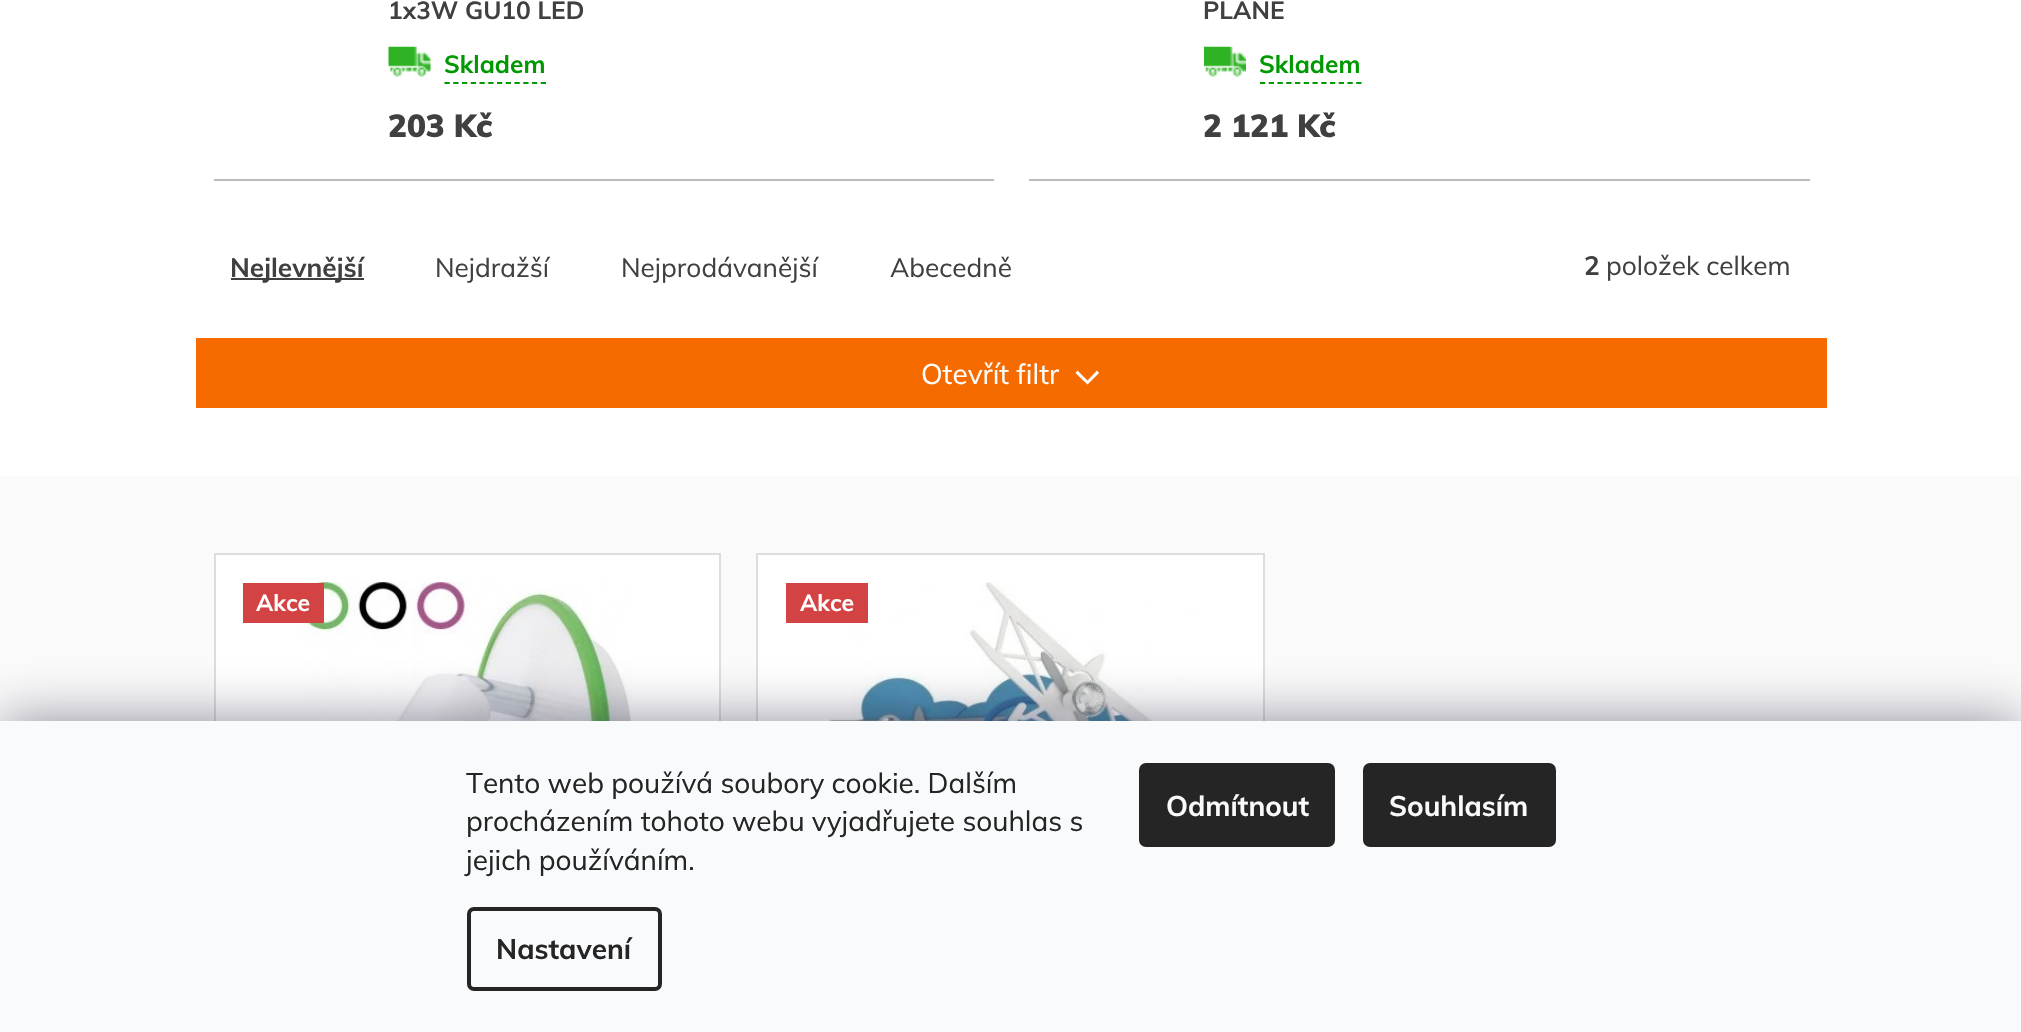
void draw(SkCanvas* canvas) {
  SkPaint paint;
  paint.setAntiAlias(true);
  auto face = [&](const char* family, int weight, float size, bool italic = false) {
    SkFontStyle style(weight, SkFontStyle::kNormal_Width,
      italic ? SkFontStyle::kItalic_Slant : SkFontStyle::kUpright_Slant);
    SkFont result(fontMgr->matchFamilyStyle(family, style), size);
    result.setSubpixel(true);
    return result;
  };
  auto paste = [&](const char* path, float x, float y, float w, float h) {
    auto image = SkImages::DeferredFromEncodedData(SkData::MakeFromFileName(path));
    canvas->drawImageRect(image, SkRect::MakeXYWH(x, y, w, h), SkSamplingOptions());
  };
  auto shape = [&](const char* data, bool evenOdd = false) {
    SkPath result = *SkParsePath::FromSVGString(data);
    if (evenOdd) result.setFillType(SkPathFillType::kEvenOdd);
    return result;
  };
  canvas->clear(0xffffffff);
  paint.setColor(0xffbbbbbb);
  canvas->drawRect(SkRect::MakeXYWH(214, 179, 780, 2), paint);
  paste("img/1.png", 388, 46, 43, 31);
  paint.setStroke(true);
  paint.setStrokeWidth(1.8f);
  paint.setColor(0xff009901);
  paint.setPathEffect(SkDashPathEffect::Make({{5.25f, 3.5f}}, 0));
  canvas->drawPath(shape("M444.5 83H546"), paint);
  paint.setPathEffect(nullptr);
  paint.setStroke(false);
  paint.setColor(0xffbbbbbb);
  canvas->drawRect(SkRect::MakeXYWH(1029, 179, 781, 2), paint);
  paste("img/2.png", 1204, 46, 42, 31);
  paint.setStroke(true);
  paint.setColor(0xff009901);
  paint.setPathEffect(SkDashPathEffect::Make({{5.25f, 3.5f}}, 0));
  canvas->drawPath(shape("M1260 83H1361.5"), paint);
  paint.setPathEffect(nullptr);
  paint.setStroke(false);
  paint.setColor(0xff404040);
  canvas->drawRect(SkRect::MakeXYWH(231, 278, 133, 2), paint);
  paint.setColor(0xfff56b00);
  canvas->drawRect(SkRect::MakeXYWH(196, 338, 1631, 70), paint);
  paint.setColor(0xffffffff);
  canvas->drawPath(shape("M1099 373L1097 370.5L1087.5 380.5L1077.5 370.5L1075.5 373L1087.5 384.5Z"), paint);
  paint.setColor(0xfffafafa);
  canvas->drawRect(SkRect::MakeXYWH(0, 476, 2021, 245), paint);
  paint.setColor(0xffffffff);
  canvas->drawRect(SkRect::MakeXYWH(216, 555, 503, 166), paint);
  paint.setStroke(true);
  paint.setStrokeWidth(2);
  paint.setColor(0xffdddddd);
  canvas->drawRect(SkRect::MakeXYWH(215, 554, 505, 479), paint);
  paste("img/3.png", 294, 582, 339, 139);
  paint.setStroke(false);
  paint.setColor(0xffd34343);
  canvas->drawRect(SkRect::MakeXYWH(243, 583, 81, 40), paint);
  paint.setColor(0xffffffff);
  canvas->drawRect(SkRect::MakeXYWH(758, 555, 505, 166), paint);
  paint.setStroke(true);
  paint.setColor(0xffdddddd);
  canvas->drawRect(SkRect::MakeXYWH(757, 554, 507, 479), paint);
  paste("img/4.png", 828, 582, 366, 139);
  paint.setStroke(false);
  paint.setColor(0xffd34343);
  canvas->drawRect(SkRect::MakeXYWH(786, 583, 82, 40), paint);
  paint.setColor(0x801b1939);
  paint.setMaskFilter(SkMaskFilter::MakeBlur(kNormal_SkBlurStyle, 26));
  canvas->drawRect(SkRect::MakeXYWH(0, 721, 2021, 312), paint);
  paint.setMaskFilter(nullptr);
  paint.setColor(0xfff8fafb);
  canvas->drawRect(SkRect::MakeXYWH(0, 721, 2021, 311), paint);
  paint.setStroke(true);
  paint.setStrokeWidth(4);
  paint.setColor(0xff252525);
  canvas->drawRoundRect(SkRect::MakeXYWH(469, 909, 191, 80), 5, 5, paint);
  paint.setStroke(false);
  canvas->drawRoundRect(SkRect::MakeXYWH(1139, 763, 196, 84), 7, 7, paint);
  canvas->drawRoundRect(SkRect::MakeXYWH(1363, 763, 193, 84), 7, 7, paint);
  auto f0 = face("Muli", 700, 24.5f);
  paint.setColor(0xff404040);
  canvas->drawString("1x3W GU10 LED", 388, 19, f0, paint);
  paint.setColor(0xff009901);
  canvas->drawString("Skladem", 444, 73, f0, paint);
  auto f1 = face("Muli", 900, 31.5f);
  paint.setColor(0xff404040);
  canvas->drawString("203 Kč", 388, 137, f1, paint);
  canvas->drawString("PLANE", 1203, 19, f0, paint);
  paint.setColor(0xff009901);
  canvas->drawString("Skladem", 1259, 73, f0, paint);
  paint.setColor(0xff404040);
  canvas->drawString("2 121 Kč", 1203, 137, f1, paint);
  auto f2 = face("Muli", 700, 26.25f);
  canvas->drawString("Nejlevnější", 230, 277, f2, paint);
  auto f3 = face("Muli", 400, 26.25f);
  {
    const struct { const char* s; float x, y; } items[] = {
      {"Nejdražší", 435, 277},
      {"Nejprodávanější", 621, 277},
      {"Abecedně", 890, 277},
    };
    for (auto [s, x, y] : items) {
      canvas->drawString(s, x, y, f3, paint);
    }
  }
  canvas->drawString("2", 1584, 275, f2, paint);
  canvas->drawString("položek celkem", 1606, 275, f3, paint);
  auto f4 = face("Muli", 400, 28);
  paint.setColor(0xffffffff);
  canvas->drawString("Otevřít filtr", 921, 384, f4, paint);
  auto f5 = face("Muli", 700, 23);
  canvas->drawString("Akce", 256, 611, f5, paint);
  canvas->drawString("Akce", 800, 611, f5, paint);
  paint.setColor(0xff252525);
  {
    const struct { const char* s; float x, y; } items[] = {
      {"Tento web používá soubory cookie. Dalším", 466, 793},
      {"procházením tohoto webu vyjadřujete souhlas s", 466, 831},
      {"jejich používáním.", 466, 870},
    };
    for (auto [s, x, y] : items) {
      canvas->drawString(s, x, y, f4, paint);
    }
  }
  auto f6 = face("Muli", 700, 28);
  canvas->drawString("Nastavení", 496, 959, f6, paint);
  paint.setColor(0xfff8fafb);
  canvas->drawString("Odmítnout", 1166, 816, f6, paint);
  canvas->drawString("Souhlasím", 1389, 816, f6, paint);
}
